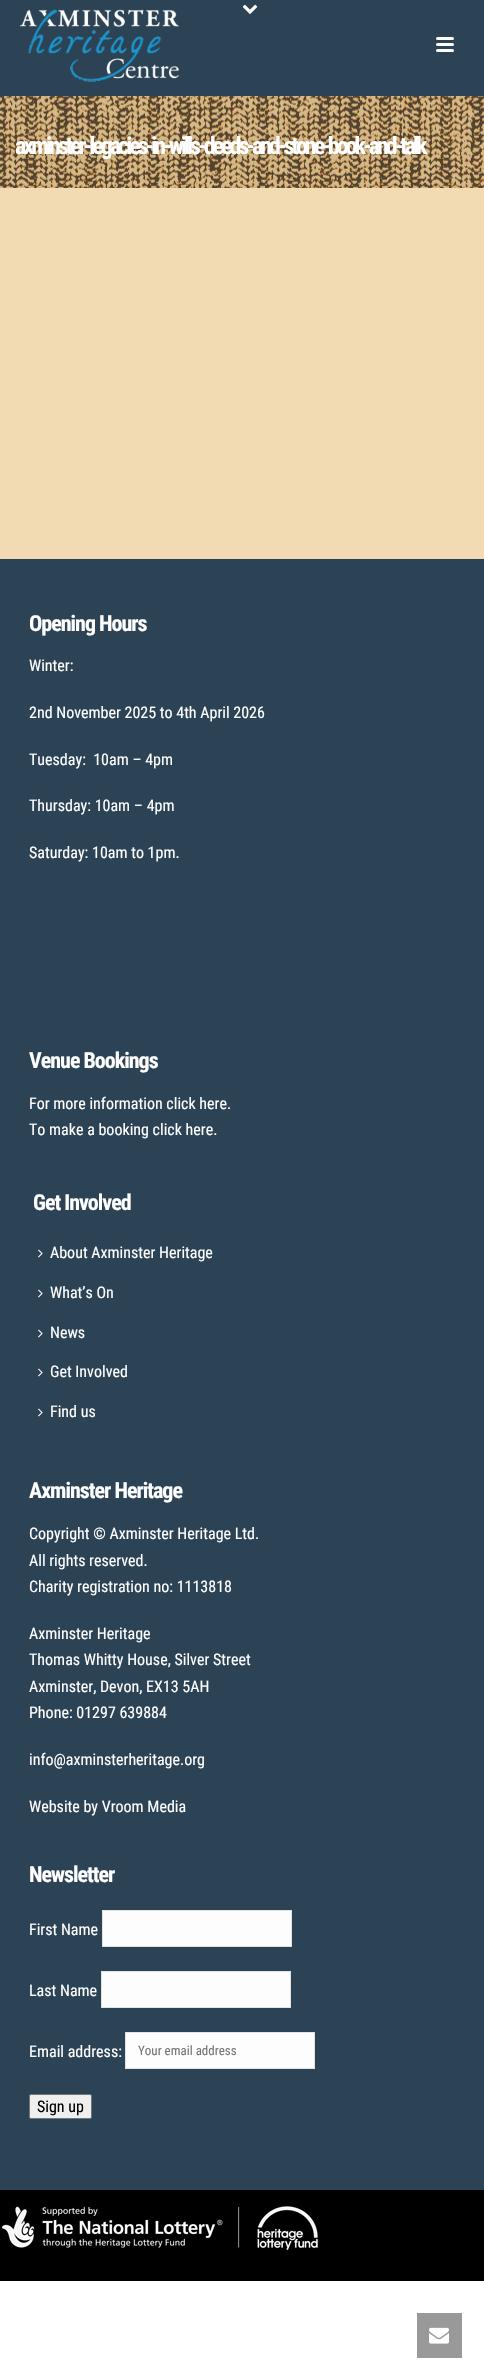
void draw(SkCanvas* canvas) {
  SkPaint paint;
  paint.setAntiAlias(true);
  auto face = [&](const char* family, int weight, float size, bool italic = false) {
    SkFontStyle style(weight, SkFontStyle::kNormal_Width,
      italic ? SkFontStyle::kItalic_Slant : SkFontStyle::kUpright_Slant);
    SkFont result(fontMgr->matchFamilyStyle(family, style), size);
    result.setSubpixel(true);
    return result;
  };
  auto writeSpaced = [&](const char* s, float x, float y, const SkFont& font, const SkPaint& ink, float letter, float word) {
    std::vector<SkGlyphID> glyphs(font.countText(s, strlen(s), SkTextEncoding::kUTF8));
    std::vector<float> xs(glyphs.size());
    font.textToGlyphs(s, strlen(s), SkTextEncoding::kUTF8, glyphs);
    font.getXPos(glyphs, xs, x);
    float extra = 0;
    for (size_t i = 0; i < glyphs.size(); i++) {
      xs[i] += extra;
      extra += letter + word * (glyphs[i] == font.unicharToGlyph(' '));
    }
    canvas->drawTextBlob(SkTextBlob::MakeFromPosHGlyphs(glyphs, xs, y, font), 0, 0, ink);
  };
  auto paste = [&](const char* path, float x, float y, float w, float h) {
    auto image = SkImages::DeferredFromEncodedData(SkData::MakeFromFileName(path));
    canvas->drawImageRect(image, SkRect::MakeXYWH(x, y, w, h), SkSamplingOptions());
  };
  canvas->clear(0xffffffff);
  paste("img/1.png", 0, 96, 484, 92);
  paint.setColor(0xff2c4255);
  canvas->drawRect(SkRect::MakeXYWH(0, 0, 484, 96), paint);
  paste("img/2.png", 242, 4, 16, 10);
  paste("img/3.png", 20, 9, 159, 73);
  paint.setColor(0xffffffff);
  canvas->drawRoundRect(SkRect::MakeXYWH(436, 37, 18, 3), 1.5f, 1.5f, paint);
  canvas->drawRoundRect(SkRect::MakeXYWH(436, 43, 18, 3), 1.5f, 1.5f, paint);
  canvas->drawRoundRect(SkRect::MakeXYWH(436, 49, 18, 3), 1.5f, 1.5f, paint);
  paint.setColor(0xfff2dab2);
  canvas->drawRect(SkRect::MakeXYWH(0, 188, 484, 371), paint);
  paint.setColor(0xff2c4255);
  canvas->drawRect(SkRect::MakeXYWH(0, 559, 484, 1631), paint);
  paste("img/4.png", 38, 1249, 5, 9);
  paste("img/4.png", 38, 1289, 5, 9);
  paste("img/4.png", 38, 1329, 5, 9);
  paste("img/4.png", 38, 1368, 5, 9);
  paste("img/4.png", 38, 1408, 5, 9);
  paint.setColor(0xfffdfdfd);
  canvas->drawRect(SkRect::MakeXYWH(102.5f, 1910.5f, 189, 36), paint);
  paint.setStroke(true);
  paint.setStrokeWidth(1);
  paint.setColor(0xffe3e3e3);
  canvas->drawRect(SkRect::MakeXYWH(102.5f, 1910.5f, 189, 36), paint);
  paint.setStroke(false);
  paint.setColor(0xfffdfdfd);
  canvas->drawRect(SkRect::MakeXYWH(101.5f, 1971.5f, 189, 36), paint);
  paint.setStroke(true);
  paint.setColor(0xffe3e3e3);
  canvas->drawRect(SkRect::MakeXYWH(101.5f, 1971.5f, 189, 36), paint);
  paint.setStroke(false);
  paint.setColor(0xfffdfdfd);
  canvas->drawRect(SkRect::MakeXYWH(125.5f, 2032.5f, 189, 36), paint);
  paint.setStroke(true);
  paint.setColor(0xffe3e3e3);
  canvas->drawRect(SkRect::MakeXYWH(125.5f, 2032.5f, 189, 36), paint);
  paint.setStroke(false);
  paint.setColor(0xffefefef);
  canvas->drawRoundRect(SkRect::MakeXYWH(29.5f, 2094.5f, 62, 24), 1.5f, 1.5f, paint);
  paint.setStroke(true);
  paint.setColor(0xff767676);
  canvas->drawRoundRect(SkRect::MakeXYWH(29.5f, 2094.5f, 62, 24), 1.5f, 1.5f, paint);
  paint.setStroke(false);
  paint.setColor(0xff000000);
  canvas->drawRect(SkRect::MakeXYWH(0, 2190, 484, 91), paint);
  paste("img/5.png", 1, 2206, 317, 44);
  paint.setColor(0xff999999);
  canvas->drawRect(SkRect::MakeXYWH(417, 2313, 45, 45), paint);
  paste("img/6.png", 429, 2327, 20, 17);
  auto f0 = face("Roboto Condensed", 700, 24);
  paint.setColor(0xffffffff);
  writeSpaced("axminster-legacies-in-wills-deeds-and-stone-book-and-talk", 15, 154, f0, paint, -3, 0);
  auto f1 = face("Roboto Condensed", 700, 22);
  writeSpaced("Opening Hours", 29, 631, f1, paint, -1, 0);
  auto f2 = face("Roboto Condensed", 400, 16);
  {
    const struct { const char* s; float x, y; } items[] = {
      {"Winter:", 29, 671},
      {"2nd November 2025 to 4th April 2026", 29, 718},
      {"Tuesday:  10am – 4pm", 29, 765},
      {"Thursday: 10am – 4pm", 29, 811},
      {"Saturday: 10am to 1pm.", 29, 858},
    };
    for (auto [s, x, y] : items) {
      canvas->drawString(s, x, y, f2, paint);
    }
  }
  writeSpaced("Venue Bookings", 29, 1068, f1, paint, -1, 0);
  canvas->drawString("For more information click here.", 29, 1109, f2, paint);
  canvas->drawString("To make a booking click here.", 29, 1135, f2, paint);
  writeSpaced("Get Involved", 33, 1210, f1, paint, -1, 0);
  {
    const struct { const char* s; float x, y; } items[] = {
      {"About Axminster Heritage", 50, 1258},
      {"What’s On", 50, 1298},
      {"News", 50, 1338},
      {"Get Involved", 50, 1377},
      {"Find us", 50, 1417},
    };
    for (auto [s, x, y] : items) {
      canvas->drawString(s, x, y, f2, paint);
    }
  }
  writeSpaced("Axminster Heritage", 29, 1498, f1, paint, -1, 0);
  {
    const struct { const char* s; float x, y; } items[] = {
      {"Copyright © Axminster Heritage Ltd.", 29, 1539},
      {"All rights reserved.", 29, 1566},
      {"Charity registration no: 1113818", 29, 1592},
      {"Axminster Heritage", 29, 1639},
      {"Thomas Whitty House, Silver Street", 29, 1665},
      {"Axminster, Devon, EX13 5AH", 29, 1692},
      {"Phone: 01297 639884", 29, 1718},
      {"info@axminsterheritage.org", 29, 1765},
      {"Website by Vroom Media", 29, 1812},
    };
    for (auto [s, x, y] : items) {
      canvas->drawString(s, x, y, f2, paint);
    }
  }
  writeSpaced("Newsletter", 29, 1882, f1, paint, -1, 0);
  {
    const struct { const char* s; float x, y; } items[] = {
      {"First Name", 29, 1935},
      {"Last Name", 29, 1996},
      {"Email address:", 29, 2057},
    };
    for (auto [s, x, y] : items) {
      canvas->drawString(s, x, y, f2, paint);
    }
  }
  auto f3 = face("Roboto Condensed", 400, 13);
  paint.setColor(0xff757575);
  canvas->drawString("Your email address", 138, 2055, f3, paint);
  paint.setColor(0xff000000);
  canvas->drawString("Sign up", 37, 2112, f2, paint);
}
